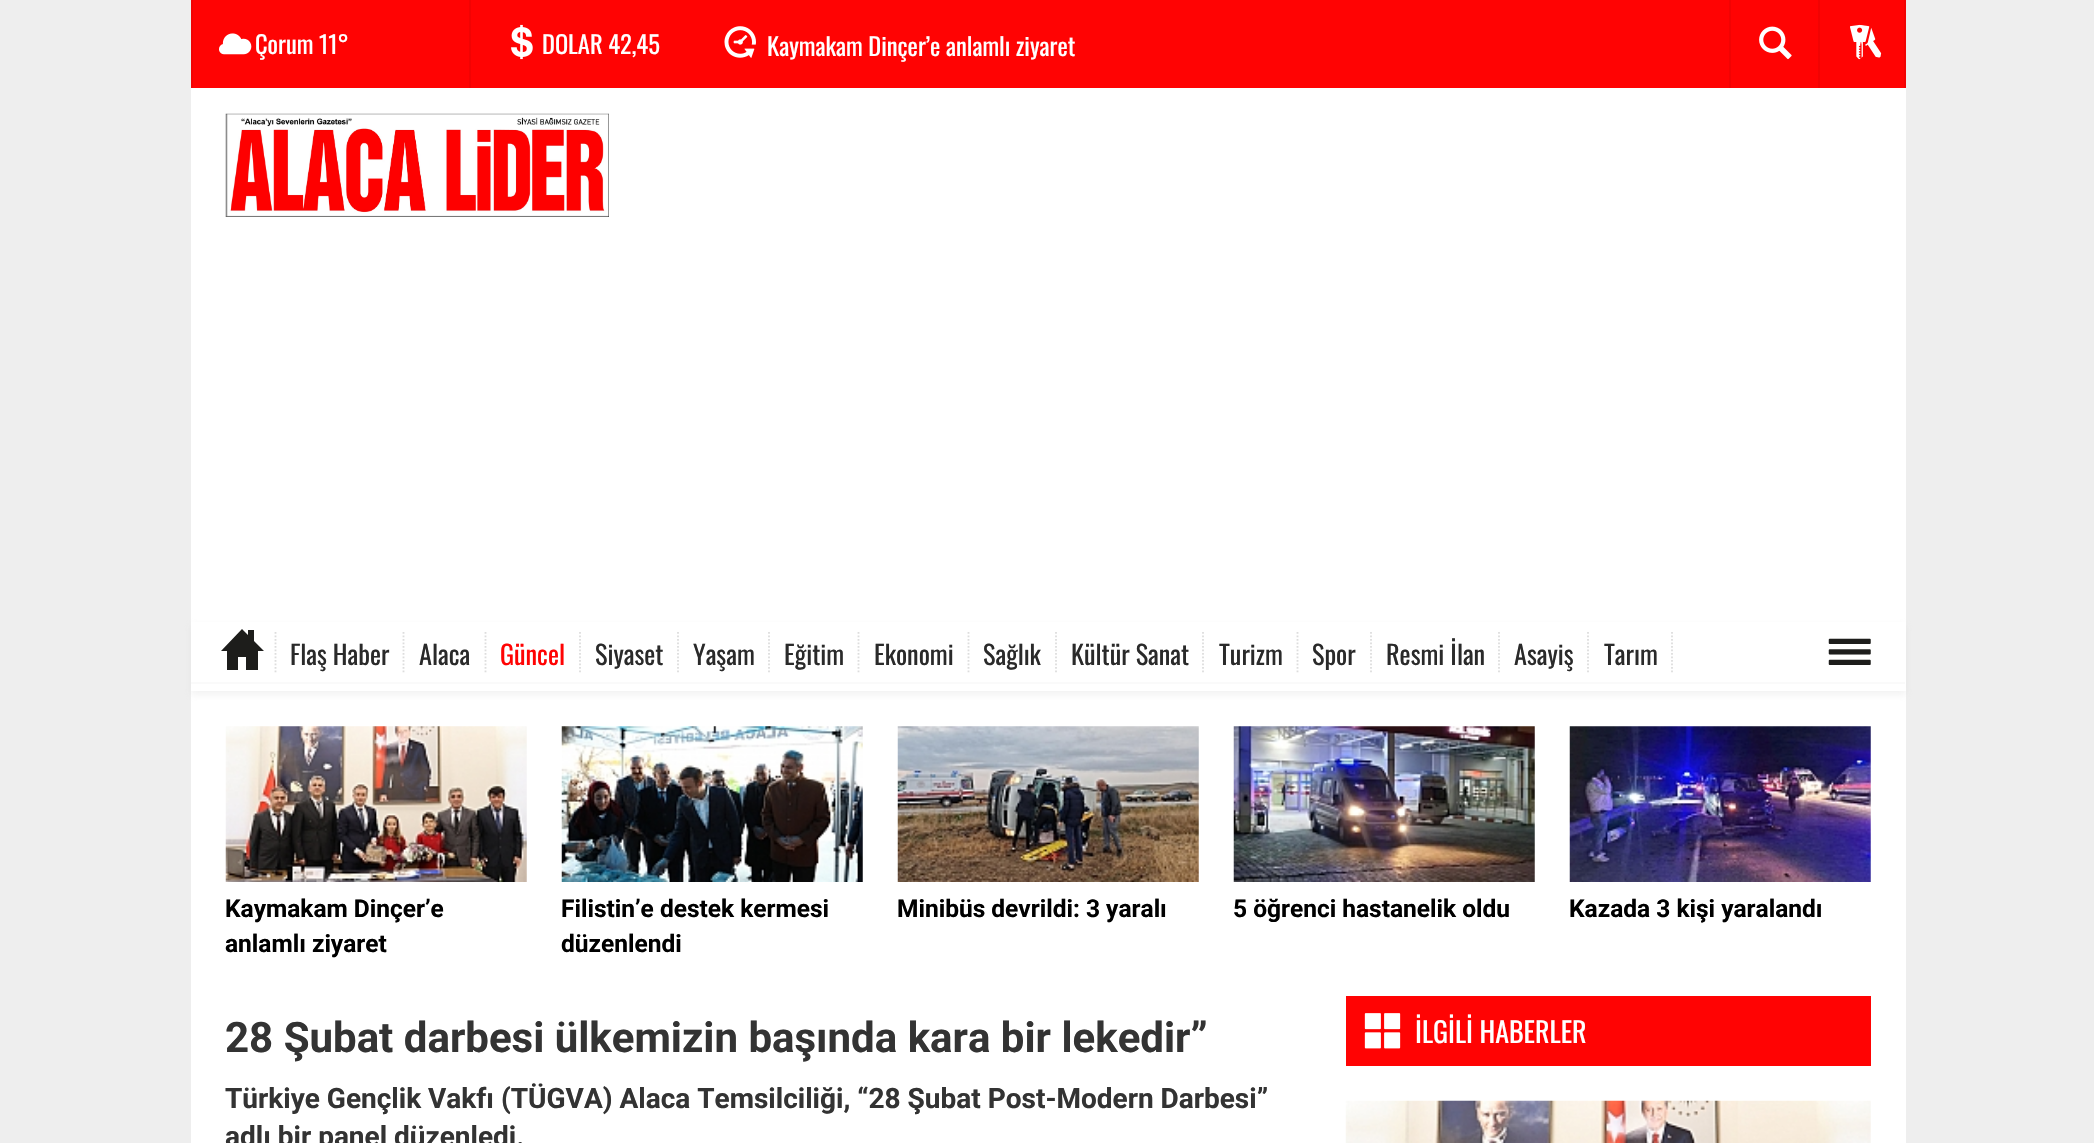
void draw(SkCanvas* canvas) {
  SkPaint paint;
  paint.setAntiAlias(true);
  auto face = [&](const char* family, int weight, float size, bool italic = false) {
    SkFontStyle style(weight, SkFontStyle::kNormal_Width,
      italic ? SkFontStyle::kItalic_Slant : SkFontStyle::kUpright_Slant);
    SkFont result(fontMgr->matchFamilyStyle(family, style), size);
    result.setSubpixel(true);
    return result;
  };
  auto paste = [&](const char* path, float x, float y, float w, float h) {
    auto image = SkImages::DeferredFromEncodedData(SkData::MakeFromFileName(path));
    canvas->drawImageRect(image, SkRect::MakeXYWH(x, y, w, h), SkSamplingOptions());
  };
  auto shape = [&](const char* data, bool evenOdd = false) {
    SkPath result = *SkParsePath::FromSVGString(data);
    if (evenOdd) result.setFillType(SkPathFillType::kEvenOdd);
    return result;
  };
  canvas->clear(0xffeeeeee);
  {
    const struct { float x, y, w, h; SkColor color; } items[] = {
      {191, 88, 1715, 1055, 0xffffffff},
      {193, 0, 1711, 88, 0xffff0303},
      {191, 0, 2, 88, 0xfff20303},
    };
    for (auto [x, y, w, h, color] : items) {
      paint.setColor(color);
      canvas->drawRect(SkRect::MakeXYWH(x, y, w, h), paint);
    }
  }
  paste("img/1.png", 219, 33, 33, 22);
  canvas->drawRect(SkRect::MakeXYWH(469, 0, 2, 88), paint);
  paste("img/2.png", 511, 24, 22, 36);
  paste("img/3.png", 724, 26, 32, 32);
  canvas->drawRect(SkRect::MakeXYWH(1729, 0, 2, 88), paint);
  paste("img/4.png", 1759, 26, 33, 34);
  canvas->drawRect(SkRect::MakeXYWH(1904, 0, 2, 88), paint);
  canvas->drawRect(SkRect::MakeXYWH(1818, 0, 2, 88), paint);
  paste("img/5.png", 1850, 24, 32, 36);
  paste("img/6.png", 225, 113, 384, 104);
  paint.setColor(0x40cccccc);
  paint.setMaskFilter(SkMaskFilter::MakeBlur(kNormal_SkBlurStyle, 3.5f));
  canvas->drawRect(SkRect::MakeXYWH(191, 625, 1715, 70), paint);
  paint.setMaskFilter(nullptr);
  paint.setColor(0xffffffff);
  canvas->drawRect(SkRect::MakeXYWH(191, 622, 1715, 69), paint);
  paint.setColor(0xfffafafa);
  canvas->drawRect(SkRect::MakeXYWH(191, 682, 1714, 2), paint);
  paint.setStroke(true);
  paint.setStrokeWidth(1.8f);
  paint.setColor(0xffdddddd);
  paint.setPathEffect(SkDashPathEffect::Make({{1.75f, 1.75f}}, 0));
  canvas->drawPath(shape("M275.5 632V674"), paint);
  paint.setPathEffect(nullptr);
  paint.setStroke(false);
  paint.setColor(0xff1d1d1b);
  canvas->drawPath(shape("M221 651L242 629L248 635V630H254V641L264 651H258V670H246V657H238V670H227V651Z"), paint);
  paint.setStroke(true);
  paint.setColor(0xffdddddd);
  paint.setPathEffect(SkDashPathEffect::Make({{1.75f, 1.75f}}, 0));
  canvas->drawPath(shape("M403.5 632V674"), paint);
  paint.setPathEffect(nullptr);
  paint.setPathEffect(SkDashPathEffect::Make({{1.75f, 1.75f}}, 0));
  canvas->drawPath(shape("M485.5 632V674"), paint);
  paint.setPathEffect(nullptr);
  paint.setPathEffect(SkDashPathEffect::Make({{1.75f, 1.75f}}, 0));
  canvas->drawPath(shape("M580 632V674"), paint);
  paint.setPathEffect(nullptr);
  paint.setPathEffect(SkDashPathEffect::Make({{1.75f, 1.75f}}, 0));
  canvas->drawPath(shape("M678 632V674"), paint);
  paint.setPathEffect(nullptr);
  paint.setPathEffect(SkDashPathEffect::Make({{1.75f, 1.75f}}, 0));
  canvas->drawPath(shape("M769 632V674"), paint);
  paint.setPathEffect(nullptr);
  paint.setPathEffect(SkDashPathEffect::Make({{1.75f, 1.75f}}, 0));
  canvas->drawPath(shape("M858.5 632V674"), paint);
  paint.setPathEffect(nullptr);
  paint.setPathEffect(SkDashPathEffect::Make({{1.75f, 1.75f}}, 0));
  canvas->drawPath(shape("M968.5 632V674"), paint);
  paint.setPathEffect(nullptr);
  paint.setPathEffect(SkDashPathEffect::Make({{1.75f, 1.75f}}, 0));
  canvas->drawPath(shape("M1056 632V674"), paint);
  paint.setPathEffect(nullptr);
  paint.setPathEffect(SkDashPathEffect::Make({{1.75f, 1.75f}}, 0));
  canvas->drawPath(shape("M1203 632V674"), paint);
  paint.setPathEffect(nullptr);
  paint.setPathEffect(SkDashPathEffect::Make({{1.75f, 1.75f}}, 0));
  canvas->drawPath(shape("M1297.5 632V674"), paint);
  paint.setPathEffect(nullptr);
  paint.setPathEffect(SkDashPathEffect::Make({{1.75f, 1.75f}}, 0));
  canvas->drawPath(shape("M1371 632V674"), paint);
  paint.setPathEffect(nullptr);
  paint.setPathEffect(SkDashPathEffect::Make({{1.75f, 1.75f}}, 0));
  canvas->drawPath(shape("M1499 632V674"), paint);
  paint.setPathEffect(nullptr);
  paint.setPathEffect(SkDashPathEffect::Make({{1.75f, 1.75f}}, 0));
  canvas->drawPath(shape("M1588 632V674"), paint);
  paint.setPathEffect(nullptr);
  paint.setPathEffect(SkDashPathEffect::Make({{1.75f, 1.75f}}, 0));
  canvas->drawPath(shape("M1672 632V674"), paint);
  paint.setPathEffect(nullptr);
  paste("img/7.png", 1828, 638, 43, 27);
  paste("img/8.png", 225, 726, 302, 156);
  paste("img/9.png", 561, 726, 302, 156);
  paste("img/10.png", 897, 726, 302, 156);
  paste("img/11.png", 1233, 726, 302, 156);
  paste("img/12.png", 1569, 726, 302, 156);
  paint.setStroke(false);
  paint.setColor(0xffff0303);
  canvas->drawRect(SkRect::MakeXYWH(1346, 996, 525, 70), paint);
  paste("img/13.png", 1364, 1013, 37, 36);
  paste("img/14.png", 1345, 1100, 526, 43);
  auto f0 = face("Oswald", 400, 24.5f);
  paint.setColor(0xffffffff);
  {
    const struct { const char* s; float x, y; } items[] = {
      {"Çorum 11°", 255, 54},
      {"DOLAR 42,45", 542, 54},
      {"Kaymakam Dinçer’e anlamlı ziyaret", 767, 56},
    };
    for (auto [s, x, y] : items) {
      canvas->drawString(s, x, y, f0, paint);
    }
  }
  auto f1 = face("Oswald", 400, 26.25f);
  paint.setColor(0xff2a2a2a);
  canvas->drawString("Flaş Haber", 290, 665, f1, paint);
  canvas->drawString("Alaca", 419, 665, f1, paint);
  paint.setColor(0xffff0303);
  canvas->drawString("Güncel", 500, 665, f1, paint);
  paint.setColor(0xff2a2a2a);
  {
    const struct { const char* s; float x, y; } items[] = {
      {"Siyaset", 595, 665},
      {"Yaşam", 693, 665},
      {"Eğitim", 784, 665},
      {"Ekonomi", 874, 665},
      {"Sağlık", 983, 665},
      {"Kültür Sanat", 1071, 665},
      {"Turizm", 1219, 665},
      {"Spor", 1312, 665},
      {"Resmi İlan", 1386, 665},
      {"Asayiş", 1514, 665},
      {"Tarım", 1604, 665},
    };
    for (auto [s, x, y] : items) {
      canvas->drawString(s, x, y, f1, paint);
    }
  }
  auto f2 = face("Roboto", 700, 24.5f);
  paint.setColor(0xff000000);
  {
    const struct { const char* s; float x, y; } items[] = {
      {"Kaymakam Dinçer’e", 225, 917},
      {"anlamlı ziyaret", 225, 952},
      {"Filistin’e destek kermesi", 561, 917},
      {"düzenlendi", 561, 952},
      {"Minibüs devrildi: 3 yaralı", 897, 917},
      {"5 öğrenci hastanelik oldu", 1233, 917},
      {"Kazada 3 kişi yaralandı", 1569, 917},
    };
    for (auto [s, x, y] : items) {
      canvas->drawString(s, x, y, f2, paint);
    }
  }
  auto f3 = face("Roboto", 700, 42);
  paint.setColor(0xff333333);
  canvas->drawString("28 Şubat darbesi ülkemizin başında kara bir lekedir”", 225, 1052, f3, paint);
  auto f4 = face("Roboto", 700, 28);
  canvas->drawString("Türkiye Gençlik Vakfı (TÜGVA) Alaca Temsilciliği, “28 Şubat Post-Modern Darbesi”", 225, 1108, f4, paint);
  canvas->drawString("adlı bir panel düzenledi.", 225, 1146, f4, paint);
  auto f5 = face("Oswald", 400, 28);
  paint.setColor(0xffffffff);
  canvas->drawString("İLGİLİ HABERLER", 1415, 1043, f5, paint);
}
